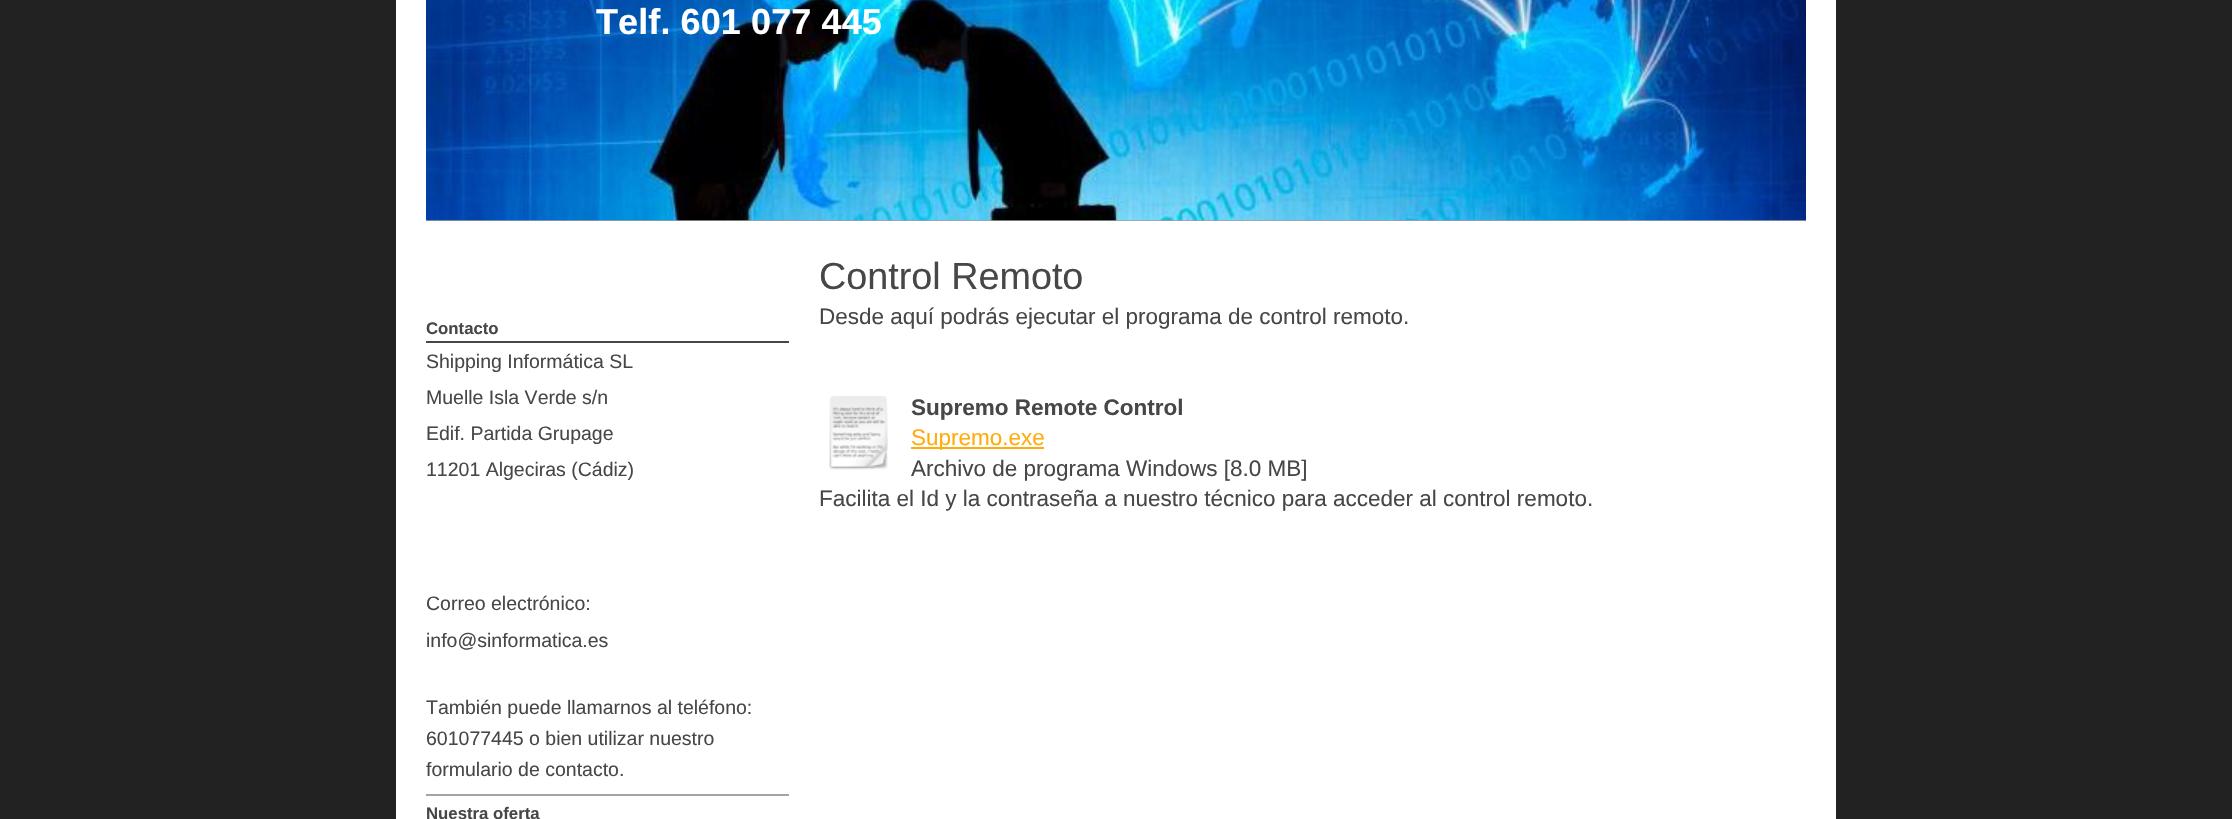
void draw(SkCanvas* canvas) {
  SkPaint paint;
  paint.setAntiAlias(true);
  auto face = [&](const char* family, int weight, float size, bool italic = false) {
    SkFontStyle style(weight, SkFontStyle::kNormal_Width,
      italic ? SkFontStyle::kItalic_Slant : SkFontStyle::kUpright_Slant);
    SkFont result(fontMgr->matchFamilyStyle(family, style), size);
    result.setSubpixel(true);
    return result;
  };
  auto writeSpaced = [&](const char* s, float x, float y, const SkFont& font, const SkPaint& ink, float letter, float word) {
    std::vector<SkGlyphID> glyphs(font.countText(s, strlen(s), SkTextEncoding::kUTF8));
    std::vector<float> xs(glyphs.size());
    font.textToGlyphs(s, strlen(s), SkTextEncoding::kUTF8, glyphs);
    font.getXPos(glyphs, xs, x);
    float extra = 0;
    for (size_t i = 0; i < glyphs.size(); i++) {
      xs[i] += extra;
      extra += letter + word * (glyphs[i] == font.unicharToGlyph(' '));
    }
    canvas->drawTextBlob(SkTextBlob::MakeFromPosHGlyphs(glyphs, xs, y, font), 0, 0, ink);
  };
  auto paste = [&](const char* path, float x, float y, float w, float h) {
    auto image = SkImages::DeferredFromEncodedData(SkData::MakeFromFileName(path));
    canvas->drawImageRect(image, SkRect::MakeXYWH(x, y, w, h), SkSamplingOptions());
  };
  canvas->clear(0xff222222);
  paint.setColor(0xffffffff);
  canvas->drawRect(SkRect::MakeXYWH(396, 0, 1440, 819), paint);
  paint.setColor(0xffa0a0a0);
  canvas->drawRect(SkRect::MakeXYWH(426, 220, 1380, 1), paint);
  paste("img/1.png", 426, 0, 1380, 221);
  paint.setColor(0xff474747);
  canvas->drawRect(SkRect::MakeXYWH(426, 341, 363, 2), paint);
  paint.setColor(0xffa3a3a3);
  canvas->drawRect(SkRect::MakeXYWH(426, 794, 363, 2), paint);
  paste("img/2.png", 829, 396, 59, 74);
  paint.setColor(0xffffac0d);
  canvas->drawRect(SkRect::MakeXYWH(911, 447, 133, 2), paint);
  auto f0 = face("Liberation Sans", 700, 36);
  paint.setColor(0xffffffff);
  writeSpaced("Telf. 601 077 445", 596, 34, f0, paint, 0.1f, 0);
  auto f1 = face("Liberation Sans", 700, 16.75f);
  paint.setColor(0xff474747);
  canvas->drawString("Contacto", 426, 334, f1, paint);
  auto f2 = face("Liberation Sans", 400, 19.5f);
  {
    const struct { const char* s; float x, y; } items[] = {
      {"Shipping Informática SL", 426, 368},
      {"Muelle Isla Verde s/n", 426, 404},
      {"Edif. Partida Grupage", 426, 440},
      {"11201 Algeciras (Cádiz)", 426, 476},
      {"Correo electrónico:", 426, 610},
      {"info@sinformatica.es", 426, 647},
      {"También puede llamarnos al teléfono:", 426, 714},
      {"601077445 o bien utilizar nuestro", 426, 745},
      {"formulario de contacto.", 426, 776},
    };
    for (auto [s, x, y] : items) {
      canvas->drawString(s, x, y, f2, paint);
    }
  }
  canvas->drawString("Nuestra oferta", 426, 819, f1, paint);
  auto f3 = face("Liberation Sans", 400, 37.75f);
  canvas->drawString("Control Remoto", 819, 289, f3, paint);
  auto f4 = face("Liberation Sans", 400, 22.5f);
  canvas->drawString("Desde aquí podrás ejecutar el programa de control remoto.", 819, 324, f4, paint);
  auto f5 = face("Liberation Sans", 700, 22.5f);
  canvas->drawString("Supremo Remote Control", 911, 415, f5, paint);
  paint.setColor(0xffffac0d);
  canvas->drawString("Supremo.exe", 911, 445, f4, paint);
  paint.setColor(0xff474747);
  canvas->drawString("Archivo de programa Windows [8.0 MB]", 911, 476, f4, paint);
  canvas->drawString("Facilita el Id y la contraseña a nuestro técnico para acceder al control remoto.", 819, 506, f4, paint);
}
